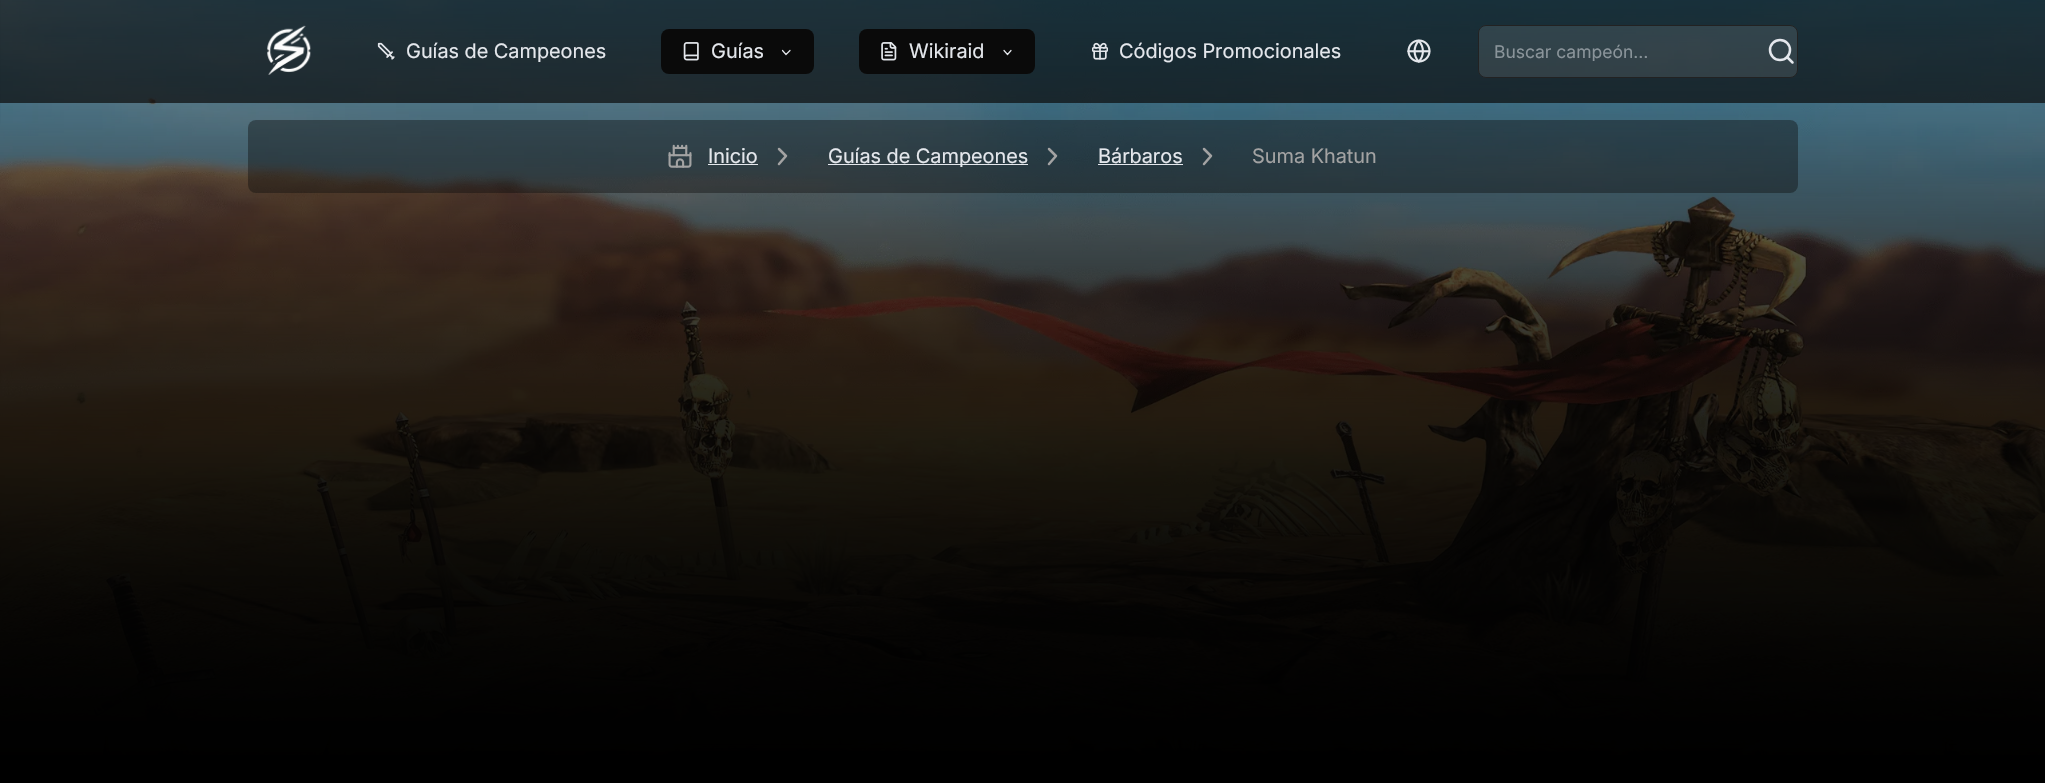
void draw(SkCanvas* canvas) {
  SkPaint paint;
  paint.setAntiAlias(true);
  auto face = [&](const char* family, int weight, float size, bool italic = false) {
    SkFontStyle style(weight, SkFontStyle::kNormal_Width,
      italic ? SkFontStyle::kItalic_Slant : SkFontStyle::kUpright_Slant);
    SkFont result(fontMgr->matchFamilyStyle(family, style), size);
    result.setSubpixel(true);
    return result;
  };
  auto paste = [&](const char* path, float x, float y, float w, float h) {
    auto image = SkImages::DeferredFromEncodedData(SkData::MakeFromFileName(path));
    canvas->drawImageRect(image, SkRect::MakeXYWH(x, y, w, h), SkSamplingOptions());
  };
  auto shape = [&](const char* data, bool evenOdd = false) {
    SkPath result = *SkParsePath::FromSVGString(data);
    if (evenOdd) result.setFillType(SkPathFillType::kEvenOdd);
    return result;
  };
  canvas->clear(0xffffffff);
  paste("img/1.png", 0, 0, 2045, 783);
  paint.setColor(0xb30a0a0a);
  canvas->drawRect(SkRect::MakeXYWH(0, 0, 2045, 103), paint);
  paste("img/2.png", 267, 25, 44, 50);
  paste("img/3.png", 377, 42, 18, 18);
  paint.setColor(0xff0a0a0a);
  canvas->drawRoundRect(SkRect::MakeXYWH(661, 29, 153, 45), 8, 8, paint);
  paste("img/4.png", 683, 42, 16, 19);
  paint.setStroke(true);
  paint.setStrokeWidth(1.2f);
  paint.setStrokeCap(SkPaint::kRound_Cap);
  paint.setStrokeJoin(SkPaint::kRound_Join);
  paint.setColor(0xffe4e7ec);
  canvas->drawPath(shape("M782.5 50.5L786 54.5L790 50.5"), paint);
  paint.setStroke(false);
  paint.setColor(0xff0a0a0a);
  canvas->drawRoundRect(SkRect::MakeXYWH(859, 29, 176, 45), 8, 8, paint);
  paste("img/5.png", 881, 42, 16, 19);
  paint.setStroke(true);
  paint.setColor(0xffe4e7ec);
  canvas->drawPath(shape("M1004 50.5L1007.5 54.5L1011 50.5"), paint);
  paste("img/6.png", 1092, 42, 16, 18);
  paste("img/7.png", 1407, 39, 24, 24);
  paint.setStroke(false);
  paint.setColor(0x1affffff);
  canvas->drawRoundRect(SkRect::MakeXYWH(1478.5f, 25.5f, 319, 52), 7.5f, 7.5f, paint);
  paint.setStroke(true);
  paint.setStrokeWidth(1);
  paint.setStrokeCap(SkPaint::kButt_Cap);
  paint.setStrokeJoin(SkPaint::kMiter_Join);
  paint.setColor(0xff222222);
  canvas->drawRoundRect(SkRect::MakeXYWH(1478.5f, 25.5f, 319, 52), 7.5f, 7.5f, paint);
  paint.setStrokeWidth(2.5f);
  paint.setColor(0xffe4e7ec);
  canvas->drawCircle(1780, 50, 10, paint);
  paint.setStrokeCap(SkPaint::kRound_Cap);
  paint.setStrokeJoin(SkPaint::kRound_Join);
  canvas->drawPath(shape("M1792.5 62.5L1787 57"), paint);
  paint.setStroke(false);
  paint.setColor(0x660a0a0a);
  canvas->drawRoundRect(SkRect::MakeXYWH(248, 120, 1550, 73), 8, 8, paint);
  paste("img/8.png", 668, 144, 24, 24);
  paint.setColor(0xffe4e7ec);
  canvas->drawRect(SkRect::MakeXYWH(708, 164, 50, 1), paint);
  paint.setStroke(true);
  paint.setColor(0xffa3a3a3);
  canvas->drawPath(shape("M779 164L786 156L779 149"), paint);
  paint.setStroke(false);
  paint.setColor(0xffe4e7ec);
  canvas->drawRect(SkRect::MakeXYWH(828, 164, 200, 1), paint);
  paint.setStroke(true);
  paint.setColor(0xffa3a3a3);
  canvas->drawPath(shape("M1049 164L1056 156L1049 149"), paint);
  paint.setStroke(false);
  paint.setColor(0xffe4e7ec);
  canvas->drawRect(SkRect::MakeXYWH(1098, 164, 85, 1), paint);
  paint.setStroke(true);
  paint.setColor(0xffa3a3a3);
  canvas->drawPath(shape("M1204 164L1211 156L1204 149"), paint);
  auto f0 = face("Inter", 400, 20);
  paint.setStroke(false);
  paint.setColor(0xffe4e7ec);
  {
    const struct { const char* s; float x, y; } items[] = {
      {"Guías de Campeones", 406, 58},
      {"Guías", 711, 58},
      {"Wikiraid", 909, 58},
      {"Códigos Promocionales", 1119, 58},
    };
    for (auto [s, x, y] : items) {
      canvas->drawString(s, x, y, f0, paint);
    }
  }
  canvas->save();
  canvas->clipRect(SkRect::MakeXYWH(1494, 40, 272, 21));
  auto f1 = face("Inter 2", 400, 17.5f);
  paint.setColor(0xff8a949a);
  canvas->drawString("Buscar campeón…", 1494, 58, f1, paint);
  canvas->restore();
  paint.setColor(0xffe4e7ec);
  {
    const struct { const char* s; float x, y; } items[] = {
      {"Inicio", 708, 163},
      {"Guías de Campeones", 828, 163},
      {"Bárbaros", 1098, 163},
    };
    for (auto [s, x, y] : items) {
      canvas->drawString(s, x, y, f0, paint);
    }
  }
  paint.setColor(0xffa3a3a3);
  canvas->drawString("Suma Khatun", 1252, 163, f0, paint);
}
